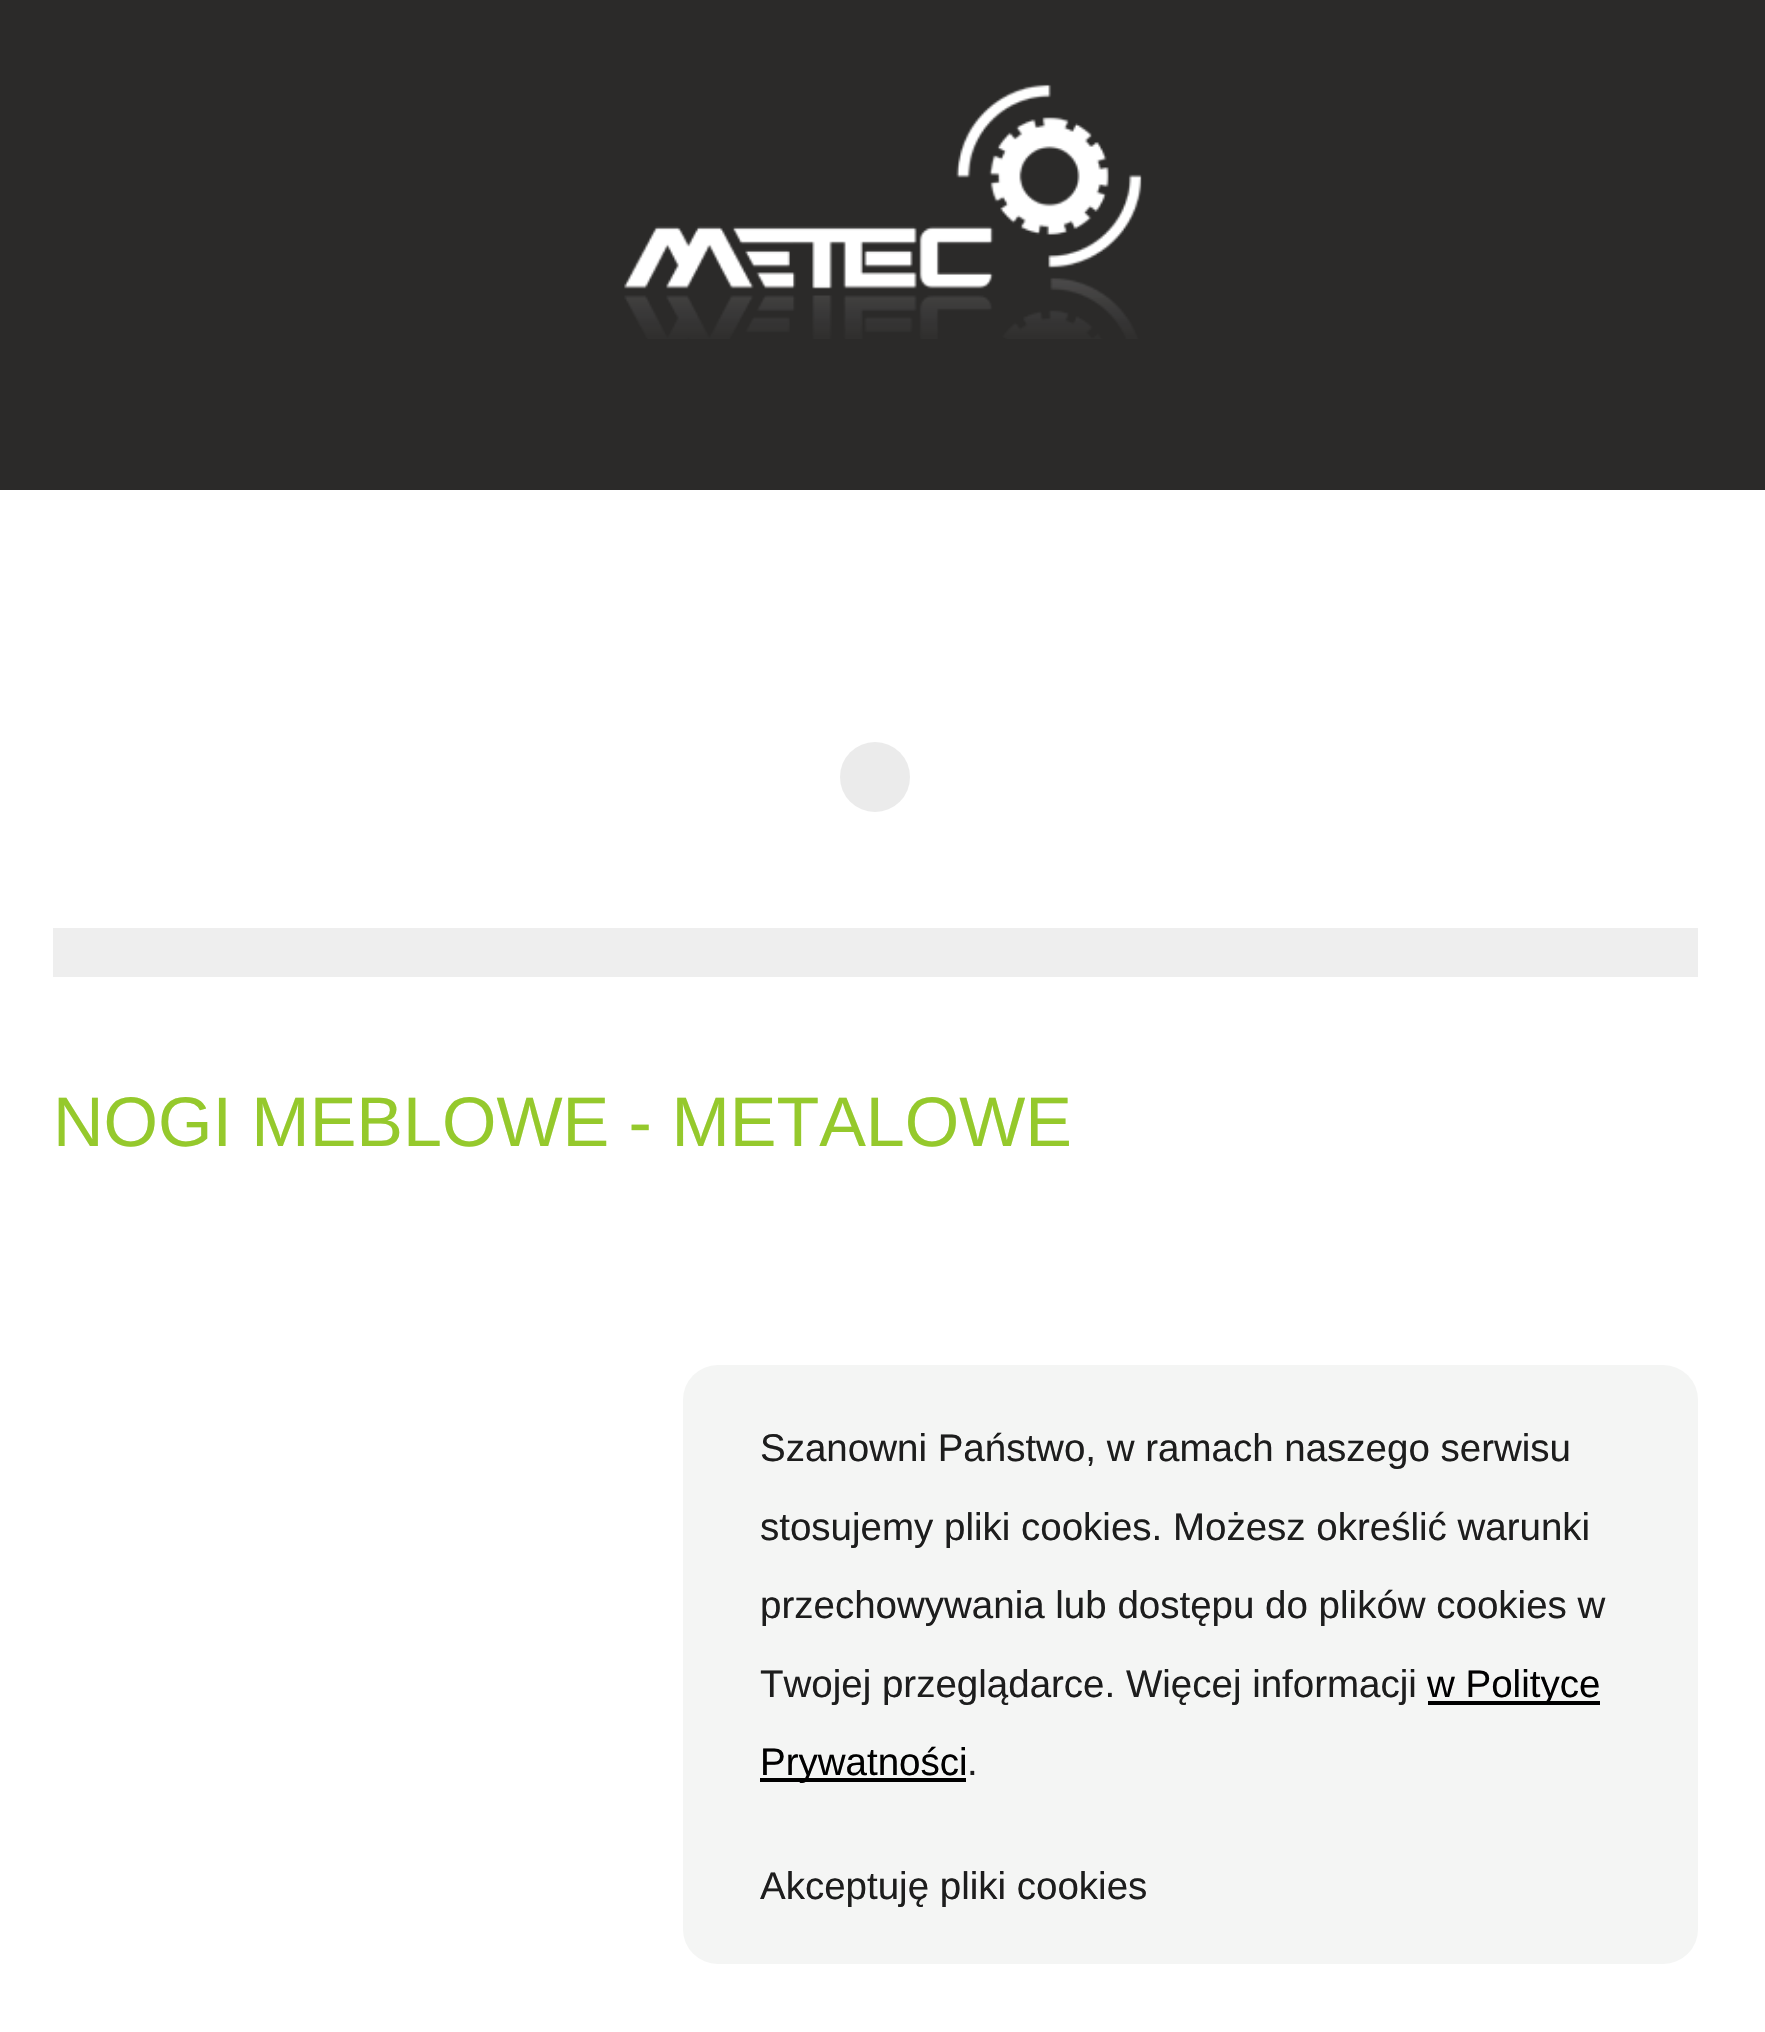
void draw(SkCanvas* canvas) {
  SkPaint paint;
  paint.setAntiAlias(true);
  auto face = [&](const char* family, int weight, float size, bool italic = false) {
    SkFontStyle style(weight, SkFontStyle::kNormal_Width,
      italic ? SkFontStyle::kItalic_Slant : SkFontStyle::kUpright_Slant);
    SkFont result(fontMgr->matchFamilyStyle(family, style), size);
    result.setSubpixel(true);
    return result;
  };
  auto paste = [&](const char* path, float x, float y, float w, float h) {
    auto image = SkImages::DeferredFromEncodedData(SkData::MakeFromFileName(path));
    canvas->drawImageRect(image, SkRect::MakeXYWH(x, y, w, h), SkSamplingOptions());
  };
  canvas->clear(0xffffffff);
  paint.setColor(0xff2b2a29);
  canvas->drawRect(SkRect::MakeXYWH(0, 0, 1765, 490), paint);
  paste("img/1.png", 624, 84, 518, 255);
  paint.setColor(0xffeeeeee);
  canvas->drawRect(SkRect::MakeXYWH(53, 928, 1645, 49), paint);
  paint.setColor(0xffebebeb);
  canvas->drawCircle(875, 777, 35, paint);
  paint.setColor(0xfff4f5f4);
  canvas->drawRoundRect(SkRect::MakeXYWH(683, 1365, 1015, 599), 35, 35, paint);
  paint.setColor(0xff000000);
  canvas->drawRect(SkRect::MakeXYWH(1428, 1701, 172, 4), paint);
  canvas->drawRect(SkRect::MakeXYWH(760, 1778, 206, 4), paint);
  auto f0 = face("Liberation Sans", 400, 70);
  paint.setColor(0xff95c92c);
  canvas->drawString("NOGI MEBLOWE - METALOWE", 53, 1146, f0, paint);
  auto f1 = face("Liberation Sans", 400, 38.5f);
  paint.setColor(0xff1d1d1d);
  {
    const struct { const char* s; float x, y; } items[] = {
      {"Szanowni Państwo, w ramach naszego serwisu", 760, 1461},
      {"stosujemy pliki cookies. Możesz określić warunki", 760, 1540},
      {"przechowywania lub dostępu do plików cookies w", 760, 1618},
      {"Twojej przeglądarce. Więcej informacji", 760, 1697},
    };
    for (auto [s, x, y] : items) {
      canvas->drawString(s, x, y, f1, paint);
    }
  }
  paint.setColor(0xff000000);
  canvas->drawString("w Polityce", 1427, 1697, f1, paint);
  canvas->drawString("Prywatności", 760, 1775, f1, paint);
  paint.setColor(0xff1d1d1d);
  canvas->drawString(".", 967, 1775, f1, paint);
  canvas->drawString("Akceptuję pliki cookies", 760, 1899, f1, paint);
}
